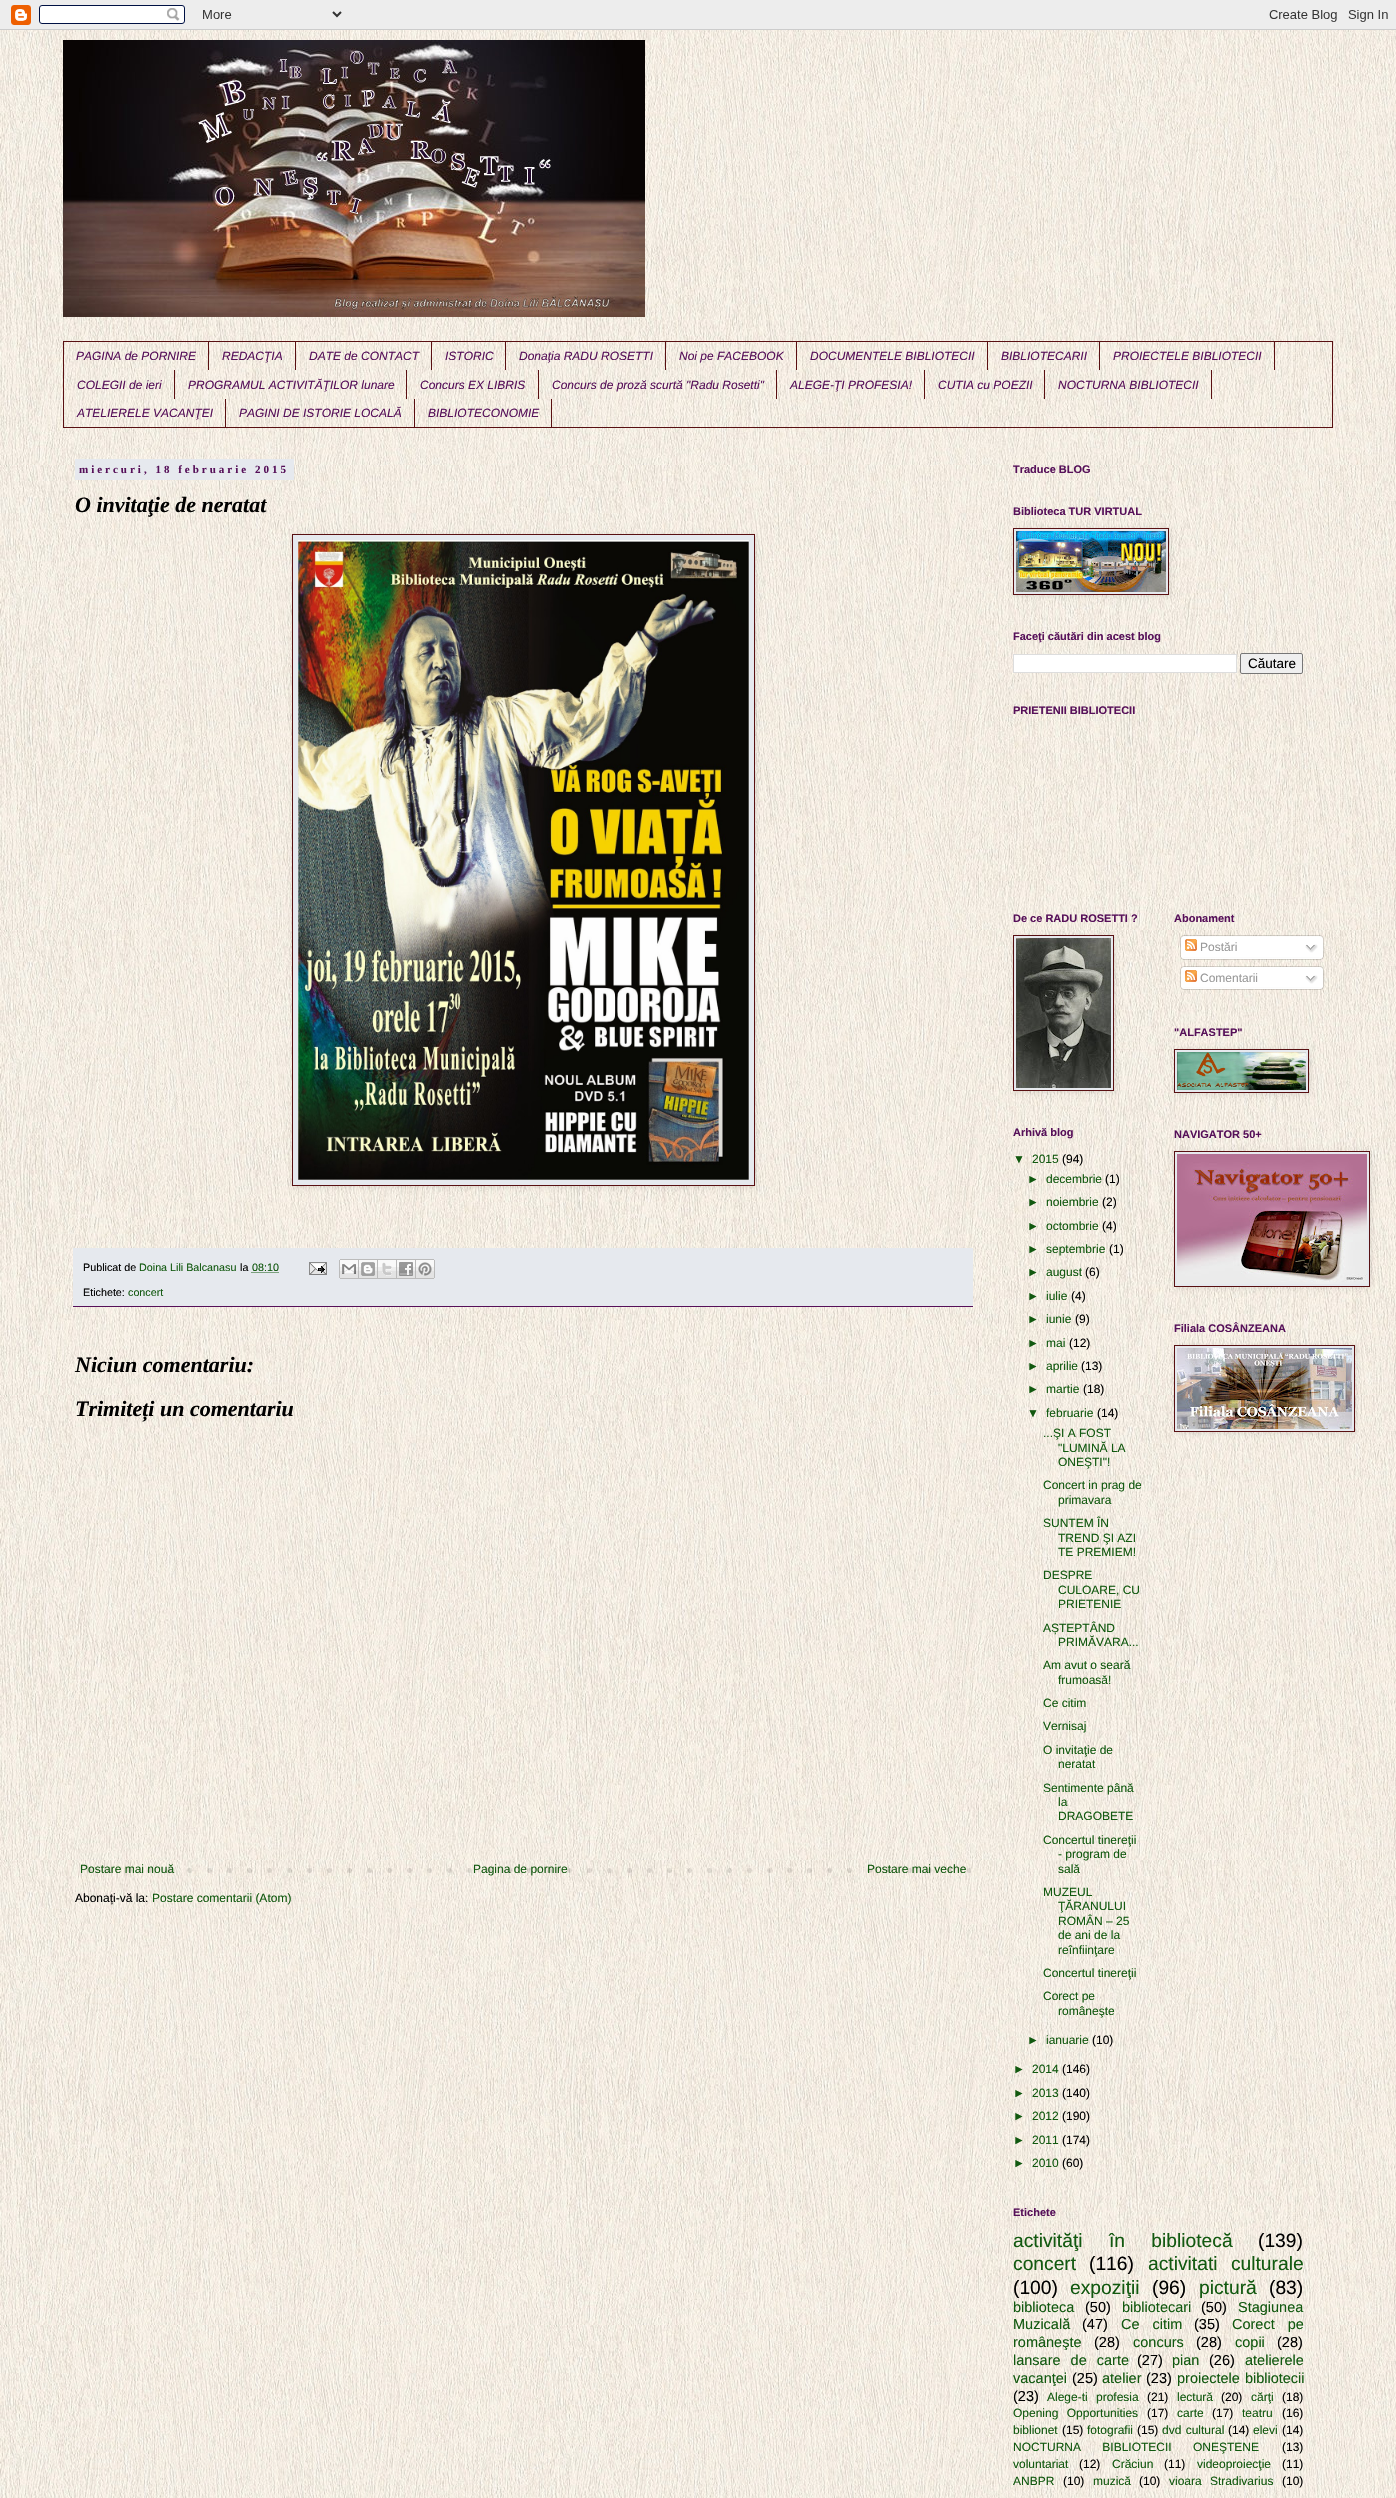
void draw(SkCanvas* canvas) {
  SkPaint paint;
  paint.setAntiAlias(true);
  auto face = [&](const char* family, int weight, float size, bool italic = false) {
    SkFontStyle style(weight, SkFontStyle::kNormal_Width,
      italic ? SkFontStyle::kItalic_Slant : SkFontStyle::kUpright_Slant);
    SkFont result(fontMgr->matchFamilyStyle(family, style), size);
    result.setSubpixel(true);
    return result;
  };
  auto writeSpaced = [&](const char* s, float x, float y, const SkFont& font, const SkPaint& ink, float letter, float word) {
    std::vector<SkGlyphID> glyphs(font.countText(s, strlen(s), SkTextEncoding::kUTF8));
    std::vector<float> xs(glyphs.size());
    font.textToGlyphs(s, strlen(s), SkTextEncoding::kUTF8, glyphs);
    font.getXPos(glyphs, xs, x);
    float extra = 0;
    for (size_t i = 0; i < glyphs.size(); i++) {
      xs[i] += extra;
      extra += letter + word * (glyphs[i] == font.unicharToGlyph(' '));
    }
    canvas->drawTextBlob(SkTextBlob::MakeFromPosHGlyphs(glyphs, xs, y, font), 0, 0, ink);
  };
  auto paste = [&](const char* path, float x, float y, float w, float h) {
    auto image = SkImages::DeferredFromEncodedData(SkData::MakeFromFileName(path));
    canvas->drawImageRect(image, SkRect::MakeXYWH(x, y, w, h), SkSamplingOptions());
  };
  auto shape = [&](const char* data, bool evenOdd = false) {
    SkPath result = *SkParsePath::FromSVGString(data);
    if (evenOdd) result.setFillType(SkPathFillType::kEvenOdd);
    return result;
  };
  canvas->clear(0xffffffff);
  paste("img/1.png", 0, 30, 1396, 2468);
  paste("img/2.png", 0, 0, 1396, 30);
  paste("img/3.png", 63, 40, 582, 277);
  paint.setStroke(true);
  paint.setStrokeWidth(1);
  paint.setColor(0xff591012);
  canvas->drawRect(SkRect::MakeXYWH(63.5f, 341.5f, 1269, 86), paint);
  paint.setStroke(false);
  {
    const struct { float x, y, w, h; SkColor color; } items[] = {
      {208, 342, 1, 28, 0xff591012},
      {295, 342, 1, 28, 0xff591012},
      {431, 342, 1, 28, 0xff591012},
      {505, 342, 1, 28, 0xff591012},
      {665, 342, 1, 28, 0xff591012},
      {796, 342, 1, 28, 0xff591012},
      {987, 342, 1, 28, 0xff591012},
      {1099, 342, 1, 28, 0xff591012},
      {1274, 342, 1, 28, 0xff591012},
      {174, 370, 1, 29, 0xff591012},
      {406, 370, 1, 29, 0xff591012},
      {538, 370, 1, 29, 0xff591012},
      {776, 370, 1, 29, 0xff591012},
      {924, 370, 1, 29, 0xff591012},
      {1044, 370, 1, 29, 0xff591012},
      {1211, 370, 1, 29, 0xff591012},
      {225, 399, 1, 28, 0xff591012},
      {414, 399, 1, 28, 0xff591012},
      {551, 399, 1, 28, 0xff591012},
      {75, 459, 219, 21, 0xffe6e9ee},
    };
    for (auto [x, y, w, h, color] : items) {
      paint.setColor(color);
      canvas->drawRect(SkRect::MakeXYWH(x, y, w, h), paint);
    }
  }
  paint.setColor(0x1a000000);
  paint.setMaskFilter(SkMaskFilter::MakeBlur(kNormal_SkBlurStyle, 2.5f));
  canvas->drawRect(SkRect::MakeXYWH(293, 535, 463, 652), paint);
  paint.setMaskFilter(nullptr);
  paint.setColor(0xffe6e9ee);
  canvas->drawRect(SkRect::MakeXYWH(292.5f, 534.5f, 462, 651), paint);
  paint.setStroke(true);
  paint.setColor(0xff591012);
  canvas->drawRect(SkRect::MakeXYWH(292.5f, 534.5f, 462, 651), paint);
  paste("img/4.png", 298, 540, 451, 640);
  paint.setStroke(false);
  paint.setColor(0xffe6e9ee);
  canvas->drawRect(SkRect::MakeXYWH(73, 1248, 900, 58), paint);
  paint.setColor(0xff561059);
  canvas->drawRect(SkRect::MakeXYWH(73, 1306, 900, 1), paint);
  paint.setStroke(true);
  paint.setColor(0xff125910);
  paint.setPathEffect(SkDashPathEffect::Make({{1, 1}}, 0));
  canvas->drawPath(shape("M251.5 1272.5H278.5"), paint);
  paint.setPathEffect(nullptr);
  paste("img/5.png", 309, 1262, 18, 13);
  paste("img/6.png", 339, 1259, 20, 20);
  paste("img/7.png", 359, 1259, 19, 20);
  paste("img/8.png", 378, 1259, 19, 20);
  paste("img/9.png", 397, 1259, 19, 20);
  paste("img/10.png", 416, 1259, 19, 20);
  paste("img/11.png", 87, 1868, 884, 5);
  paint.setStroke(false);
  paint.setColor(0x1a000000);
  paint.setMaskFilter(SkMaskFilter::MakeBlur(kNormal_SkBlurStyle, 2.5f));
  canvas->drawRect(SkRect::MakeXYWH(1014, 529, 156, 67), paint);
  paint.setMaskFilter(nullptr);
  paint.setColor(0xffe6e9ee);
  canvas->drawRect(SkRect::MakeXYWH(1013.5f, 528.5f, 155, 66), paint);
  paint.setStroke(true);
  paint.setColor(0xff591012);
  canvas->drawRect(SkRect::MakeXYWH(1013.5f, 528.5f, 155, 66), paint);
  paste("img/12.png", 1016, 531, 150, 61);
  paint.setStroke(false);
  paint.setColor(0xffffffff);
  canvas->drawRect(SkRect::MakeXYWH(1013.5f, 654.5f, 223, 18), paint);
  paint.setStroke(true);
  paint.setColor(0xffdddddd);
  canvas->drawRect(SkRect::MakeXYWH(1013.5f, 654.5f, 223, 18), paint);
  paint.setStroke(false);
  paint.setColor(0xffefefef);
  canvas->drawRoundRect(SkRect::MakeXYWH(1240.5f, 653.5f, 62, 20), 1.5f, 1.5f, paint);
  paint.setStroke(true);
  paint.setColor(0xff767676);
  canvas->drawRoundRect(SkRect::MakeXYWH(1240.5f, 653.5f, 62, 20), 1.5f, 1.5f, paint);
  paint.setStroke(false);
  paint.setColor(0x1a000000);
  paint.setMaskFilter(SkMaskFilter::MakeBlur(kNormal_SkBlurStyle, 2.5f));
  canvas->drawRect(SkRect::MakeXYWH(1014, 936, 101, 156), paint);
  paint.setMaskFilter(nullptr);
  paint.setColor(0xffe6e9ee);
  canvas->drawRect(SkRect::MakeXYWH(1013.5f, 935.5f, 100, 155), paint);
  paint.setStroke(true);
  paint.setColor(0xff591012);
  canvas->drawRect(SkRect::MakeXYWH(1013.5f, 935.5f, 100, 155), paint);
  paste("img/13.png", 1016, 938, 95, 150);
  paste("img/14.png", 1180, 935, 144, 22);
  paste("img/15.png", 1185, 939, 12, 12);
  paste("img/16.png", 1305, 944, 13, 9);
  paste("img/17.png", 1180, 957, 144, 3);
  paste("img/18.png", 1180, 966, 144, 21);
  paste("img/15.png", 1185, 970, 12, 12);
  paste("img/16.png", 1305, 975, 13, 9);
  paste("img/19.png", 1180, 987, 144, 3);
  paint.setStroke(false);
  paint.setColor(0x1a000000);
  paint.setMaskFilter(SkMaskFilter::MakeBlur(kNormal_SkBlurStyle, 2.5f));
  canvas->drawRect(SkRect::MakeXYWH(1175, 1050, 135, 44), paint);
  paint.setMaskFilter(nullptr);
  paint.setColor(0xffe6e9ee);
  canvas->drawRect(SkRect::MakeXYWH(1174.5f, 1049.5f, 134, 43), paint);
  paint.setStroke(true);
  paint.setColor(0xff591012);
  canvas->drawRect(SkRect::MakeXYWH(1174.5f, 1049.5f, 134, 43), paint);
  paste("img/20.png", 1177, 1052, 129, 38);
  paint.setStroke(false);
  paint.setColor(0x1a000000);
  paint.setMaskFilter(SkMaskFilter::MakeBlur(kNormal_SkBlurStyle, 2.5f));
  canvas->drawRect(SkRect::MakeXYWH(1175, 1152, 196, 136), paint);
  paint.setMaskFilter(nullptr);
  paint.setColor(0xffe6e9ee);
  canvas->drawRect(SkRect::MakeXYWH(1174.5f, 1151.5f, 195, 135), paint);
  paint.setStroke(true);
  paint.setColor(0xff591012);
  canvas->drawRect(SkRect::MakeXYWH(1174.5f, 1151.5f, 195, 135), paint);
  paste("img/21.png", 1177, 1154, 190, 130);
  paint.setStroke(false);
  paint.setColor(0x1a000000);
  paint.setMaskFilter(SkMaskFilter::MakeBlur(kNormal_SkBlurStyle, 2.5f));
  canvas->drawRect(SkRect::MakeXYWH(1175, 1346, 181, 87), paint);
  paint.setMaskFilter(nullptr);
  paint.setColor(0xffe6e9ee);
  canvas->drawRect(SkRect::MakeXYWH(1174.5f, 1345.5f, 180, 86), paint);
  paint.setStroke(true);
  paint.setColor(0xff591012);
  canvas->drawRect(SkRect::MakeXYWH(1174.5f, 1345.5f, 180, 86), paint);
  paste("img/22.png", 1177, 1348, 175, 81);
  auto f0 = face("Liberation Sans", 400, 12, true);
  paint.setStroke(false);
  paint.setColor(0xff561059);
  {
    const struct { const char* s; float x, y; } items[] = {
      {"PAGINA de PORNIRE", 76, 360},
      {"REDACŢIA", 222, 360},
      {"DATE de CONTACT", 309, 360},
      {"ISTORIC", 445, 360},
      {"Donaţia RADU ROSETTI", 519, 360},
      {"Noi pe FACEBOOK", 679, 360},
      {"DOCUMENTELE BIBLIOTECII", 810, 360},
      {"BIBLIOTECARII", 1001, 360},
      {"PROIECTELE BIBLIOTECII", 1113, 360},
      {"COLEGII de ieri", 77, 389},
      {"PROGRAMUL ACTIVITĂŢILOR lunare", 188, 389},
      {"Concurs EX LIBRIS", 420, 389},
      {"Concurs de proză scurtă \"Radu Rosetti\"", 552, 389},
      {"ALEGE-ŢI PROFESIA!", 790, 389},
      {"CUTIA cu POEZII", 938, 389},
      {"NOCTURNA BIBLIOTECII", 1058, 389},
      {"ATELIERELE VACANŢEI", 77, 417},
      {"PAGINI DE ISTORIE LOCALĂ", 239, 417},
      {"BIBLIOTECONOMIE", 428, 417},
    };
    for (auto [s, x, y] : items) {
      canvas->drawString(s, x, y, f0, paint);
    }
  }
  auto f1 = face("Liberation Serif", 700, 11);
  writeSpaced("miercuri, 18 februarie 2015", 79, 473, f1, paint, 3, 0);
  auto f2 = face("Liberation Serif", 700, 22, true);
  paint.setColor(0xff000000);
  canvas->drawString("O invitaţie de neratat", 75, 512, f2, paint);
  auto f3 = face("Liberation Sans", 400, 10.75f);
  canvas->drawString("Publicat de", 83, 1271, f3, paint);
  paint.setColor(0xff125910);
  canvas->drawString("Doina Lili Balcanasu", 139, 1271, f3, paint);
  paint.setColor(0xff000000);
  canvas->drawString("la", 240, 1271, f3, paint);
  paint.setColor(0xff125910);
  canvas->drawString("08:10", 252, 1271, f3, paint);
  paint.setColor(0xff000000);
  canvas->drawString("Etichete:", 83, 1296, f3, paint);
  paint.setColor(0xff125910);
  canvas->drawString("concert", 128, 1296, f3, paint);
  paint.setColor(0xff000000);
  canvas->drawString("Niciun comentariu:", 75, 1372, f2, paint);
  canvas->drawString("Trimiteți un comentariu", 75, 1416, f2, paint);
  auto f4 = face("Liberation Sans", 400, 12);
  paint.setColor(0xff125910);
  {
    const struct { const char* s; float x, y; } items[] = {
      {"Postare mai nouă", 80, 1873},
      {"Pagina de pornire", 473, 1873},
      {"Postare mai veche", 867, 1873},
    };
    for (auto [s, x, y] : items) {
      canvas->drawString(s, x, y, f4, paint);
    }
  }
  paint.setColor(0xff000000);
  canvas->drawString("Abonați-vă la:", 75, 1902, f4, paint);
  paint.setColor(0xff125910);
  canvas->drawString("Postare comentarii (Atom)", 152, 1902, f4, paint);
  auto f5 = face("Liberation Sans", 700, 11);
  paint.setColor(0xff561059);
  {
    const struct { const char* s; float x, y; } items[] = {
      {"Traduce BLOG", 1013, 473},
      {"Biblioteca TUR VIRTUAL", 1013, 515},
      {"Faceţi căutări din acest blog", 1013, 640},
    };
    for (auto [s, x, y] : items) {
      canvas->drawString(s, x, y, f5, paint);
    }
  }
  auto f6 = face("Liberation Sans", 400, 13.5f);
  paint.setColor(0xff000000);
  canvas->drawString("Căutare", 1248, 668, f6, paint);
  paint.setColor(0xff561059);
  {
    const struct { const char* s; float x, y; } items[] = {
      {"PRIETENII BIBLIOTECII", 1013, 714},
      {"De ce RADU ROSETTI ?", 1013, 922},
      {"Arhivă blog", 1013, 1136},
    };
    for (auto [s, x, y] : items) {
      canvas->drawString(s, x, y, f5, paint);
    }
  }
  paint.setColor(0xff125910);
  canvas->drawString("▼", 1013, 1163, f4, paint);
  canvas->drawString("2015", 1032, 1163, f4, paint);
  paint.setColor(0xff000000);
  canvas->drawString("(94)", 1062, 1163, f4, paint);
  paint.setColor(0xff125910);
  canvas->drawString("►", 1027, 1183, f4, paint);
  canvas->drawString("decembrie", 1046, 1183, f4, paint);
  paint.setColor(0xff000000);
  canvas->drawString("(1)", 1105, 1183, f4, paint);
  paint.setColor(0xff125910);
  canvas->drawString("►", 1027, 1206, f4, paint);
  canvas->drawString("noiembrie", 1046, 1206, f4, paint);
  paint.setColor(0xff000000);
  canvas->drawString("(2)", 1102, 1206, f4, paint);
  paint.setColor(0xff125910);
  canvas->drawString("►", 1027, 1230, f4, paint);
  canvas->drawString("octombrie", 1046, 1230, f4, paint);
  paint.setColor(0xff000000);
  canvas->drawString("(4)", 1102, 1230, f4, paint);
  paint.setColor(0xff125910);
  canvas->drawString("►", 1027, 1253, f4, paint);
  canvas->drawString("septembrie", 1046, 1253, f4, paint);
  paint.setColor(0xff000000);
  canvas->drawString("(1)", 1109, 1253, f4, paint);
  paint.setColor(0xff125910);
  canvas->drawString("►", 1027, 1276, f4, paint);
  canvas->drawString("august", 1046, 1276, f4, paint);
  paint.setColor(0xff000000);
  canvas->drawString("(6)", 1085, 1276, f4, paint);
  paint.setColor(0xff125910);
  canvas->drawString("►", 1027, 1300, f4, paint);
  canvas->drawString("iulie", 1046, 1300, f4, paint);
  paint.setColor(0xff000000);
  canvas->drawString("(4)", 1071, 1300, f4, paint);
  paint.setColor(0xff125910);
  canvas->drawString("►", 1027, 1323, f4, paint);
  canvas->drawString("iunie", 1046, 1323, f4, paint);
  paint.setColor(0xff000000);
  canvas->drawString("(9)", 1075, 1323, f4, paint);
  paint.setColor(0xff125910);
  canvas->drawString("►", 1027, 1347, f4, paint);
  canvas->drawString("mai", 1046, 1347, f4, paint);
  paint.setColor(0xff000000);
  canvas->drawString("(12)", 1069, 1347, f4, paint);
  paint.setColor(0xff125910);
  canvas->drawString("►", 1027, 1370, f4, paint);
  canvas->drawString("aprilie", 1046, 1370, f4, paint);
  paint.setColor(0xff000000);
  canvas->drawString("(13)", 1081, 1370, f4, paint);
  paint.setColor(0xff125910);
  canvas->drawString("►", 1027, 1393, f4, paint);
  canvas->drawString("martie", 1046, 1393, f4, paint);
  paint.setColor(0xff000000);
  canvas->drawString("(18)", 1083, 1393, f4, paint);
  paint.setColor(0xff125910);
  canvas->drawString("▼", 1027, 1417, f4, paint);
  canvas->drawString("februarie", 1046, 1417, f4, paint);
  paint.setColor(0xff000000);
  canvas->drawString("(14)", 1097, 1417, f4, paint);
  paint.setColor(0xff125910);
  {
    const struct { const char* s; float x, y; } items[] = {
      {"...ŞI A FOST", 1043, 1437},
      {"\"LUMINĂ LA", 1058, 1452},
      {"ONEŞTI\"!", 1058, 1466},
      {"Concert in prag de", 1043, 1489},
      {"primavara", 1058, 1504},
      {"SUNTEM ÎN", 1043, 1527},
      {"TREND ŞI AZI", 1058, 1542},
      {"TE PREMIEM!", 1058, 1556},
      {"DESPRE", 1043, 1579},
      {"CULOARE, CU", 1058, 1594},
      {"PRIETENIE", 1058, 1608},
      {"AȘTEPTÂND", 1043, 1632},
      {"PRIMĂVARA...", 1058, 1646},
      {"Am avut o seară", 1043, 1669},
      {"frumoasă!", 1058, 1684},
      {"Ce citim", 1043, 1707},
      {"Vernisaj", 1043, 1730},
      {"O invitaţie de", 1043, 1754},
      {"neratat", 1058, 1768},
      {"Sentimente până", 1043, 1792},
      {"la", 1058, 1806},
      {"DRAGOBETE", 1058, 1820},
      {"Concertul tinereţii", 1043, 1844},
      {"- program de", 1058, 1858},
      {"sală", 1058, 1873},
      {"MUZEUL", 1043, 1896},
      {"ŢĂRANULUI", 1058, 1910},
      {"ROMÂN – 25", 1058, 1925},
      {"de ani de la", 1058, 1939},
      {"reînfiinţare", 1058, 1954},
      {"Concertul tinereţii", 1043, 1977},
      {"Corect pe", 1043, 2000},
      {"româneşte", 1058, 2015},
      {"►", 1027, 2044},
      {"ianuarie", 1046, 2044},
    };
    for (auto [s, x, y] : items) {
      canvas->drawString(s, x, y, f4, paint);
    }
  }
  paint.setColor(0xff000000);
  canvas->drawString("(10)", 1092, 2044, f4, paint);
  paint.setColor(0xff125910);
  canvas->drawString("►", 1013, 2073, f4, paint);
  canvas->drawString("2014", 1032, 2073, f4, paint);
  paint.setColor(0xff000000);
  canvas->drawString("(146)", 1062, 2073, f4, paint);
  paint.setColor(0xff125910);
  canvas->drawString("►", 1013, 2097, f4, paint);
  canvas->drawString("2013", 1032, 2097, f4, paint);
  paint.setColor(0xff000000);
  canvas->drawString("(140)", 1062, 2097, f4, paint);
  paint.setColor(0xff125910);
  canvas->drawString("►", 1013, 2120, f4, paint);
  canvas->drawString("2012", 1032, 2120, f4, paint);
  paint.setColor(0xff000000);
  canvas->drawString("(190)", 1062, 2120, f4, paint);
  paint.setColor(0xff125910);
  canvas->drawString("►", 1013, 2144, f4, paint);
  canvas->drawString("2011", 1032, 2144, f4, paint);
  paint.setColor(0xff000000);
  canvas->drawString("(174)", 1062, 2144, f4, paint);
  paint.setColor(0xff125910);
  canvas->drawString("►", 1013, 2167, f4, paint);
  canvas->drawString("2010", 1032, 2167, f4, paint);
  paint.setColor(0xff000000);
  canvas->drawString("(60)", 1062, 2167, f4, paint);
  paint.setColor(0xff561059);
  canvas->drawString("Abonament", 1174, 922, f5, paint);
  paint.setColor(0xff999999);
  canvas->drawString("Postări", 1200, 951, f4, paint);
  canvas->drawString("Comentarii", 1200, 982, f4, paint);
  paint.setColor(0xff561059);
  {
    const struct { const char* s; float x, y; } items[] = {
      {"\"ALFASTEP\"", 1174, 1036},
      {"NAVIGATOR 50+", 1174, 1138},
      {"Filiala COSÂNZEANA", 1174, 1332},
      {"Etichete", 1013, 2216},
    };
    for (auto [s, x, y] : items) {
      canvas->drawString(s, x, y, f5, paint);
    }
  }
  auto f7 = face("Liberation Sans", 400, 19.25f);
  paint.setColor(0xff125910);
  writeSpaced("activităţi în bibliotecă", 1013, 2247, f7, paint, 0, 21);
  paint.setColor(0xff000000);
  canvas->drawString("(139)", 1258, 2247, f7, paint);
  paint.setColor(0xff125910);
  canvas->drawString("concert", 1013, 2270, f7, paint);
  paint.setColor(0xff000000);
  canvas->drawString("(116)", 1089, 2270, f7, paint);
  paint.setColor(0xff125910);
  writeSpaced("activitati culturale", 1148, 2270, f7, paint, 0, 8);
  paint.setColor(0xff000000);
  canvas->drawString("(100)", 1013, 2294, f7, paint);
  paint.setColor(0xff125910);
  canvas->drawString("expoziţii", 1070, 2294, f7, paint);
  paint.setColor(0xff000000);
  canvas->drawString("(96)", 1152, 2294, f7, paint);
  paint.setColor(0xff125910);
  canvas->drawString("pictură", 1199, 2294, f7, paint);
  paint.setColor(0xff000000);
  canvas->drawString("(83)", 1269, 2294, f7, paint);
  auto f8 = face("Liberation Sans", 400, 14.5f);
  paint.setColor(0xff125910);
  canvas->drawString("biblioteca", 1013, 2312, f8, paint);
  paint.setColor(0xff000000);
  canvas->drawString("(50)", 1085, 2312, f8, paint);
  paint.setColor(0xff125910);
  canvas->drawString("bibliotecari", 1122, 2312, f8, paint);
  paint.setColor(0xff000000);
  canvas->drawString("(50)", 1201, 2312, f8, paint);
  paint.setColor(0xff125910);
  canvas->drawString("Stagiunea", 1238, 2312, f8, paint);
  canvas->drawString("Muzicală", 1013, 2329, f8, paint);
  paint.setColor(0xff000000);
  canvas->drawString("(47)", 1082, 2329, f8, paint);
  paint.setColor(0xff125910);
  writeSpaced("Ce citim", 1121, 2329, f8, paint, 0, 9);
  paint.setColor(0xff000000);
  canvas->drawString("(35)", 1194, 2329, f8, paint);
  paint.setColor(0xff125910);
  writeSpaced("Corect pe", 1232, 2329, f8, paint, 0, 9);
  canvas->drawString("româneşte", 1013, 2347, f8, paint);
  paint.setColor(0xff000000);
  canvas->drawString("(28)", 1094, 2347, f8, paint);
  paint.setColor(0xff125910);
  canvas->drawString("concurs", 1133, 2347, f8, paint);
  paint.setColor(0xff000000);
  canvas->drawString("(28)", 1196, 2347, f8, paint);
  paint.setColor(0xff125910);
  canvas->drawString("copii", 1235, 2347, f8, paint);
  paint.setColor(0xff000000);
  canvas->drawString("(28)", 1277, 2347, f8, paint);
  paint.setColor(0xff125910);
  writeSpaced("lansare de carte", 1013, 2365, f8, paint, 0, 6);
  paint.setColor(0xff000000);
  canvas->drawString("(27)", 1137, 2365, f8, paint);
  paint.setColor(0xff125910);
  canvas->drawString("pian", 1172, 2365, f8, paint);
  paint.setColor(0xff000000);
  canvas->drawString("(26)", 1209, 2365, f8, paint);
  paint.setColor(0xff125910);
  canvas->drawString("atelierele", 1245, 2365, f8, paint);
  canvas->drawString("vacanţei", 1013, 2383, f8, paint);
  paint.setColor(0xff000000);
  canvas->drawString("(25)", 1072, 2383, f8, paint);
  paint.setColor(0xff125910);
  canvas->drawString("atelier", 1102, 2383, f8, paint);
  paint.setColor(0xff000000);
  canvas->drawString("(23)", 1146, 2383, f8, paint);
  paint.setColor(0xff125910);
  writeSpaced("proiectele bibliotecii", 1177, 2383, f8, paint, 0, 1);
  paint.setColor(0xff000000);
  canvas->drawString("(23)", 1013, 2401, f8, paint);
  paint.setColor(0xff125910);
  writeSpaced("Alege-ti profesia", 1047, 2401, f4, paint, 0, 5);
  paint.setColor(0xff000000);
  canvas->drawString("(21)", 1147, 2401, f4, paint);
  paint.setColor(0xff125910);
  canvas->drawString("lectură", 1177, 2401, f4, paint);
  paint.setColor(0xff000000);
  canvas->drawString("(20)", 1221, 2401, f4, paint);
  paint.setColor(0xff125910);
  canvas->drawString("cărţi", 1251, 2401, f4, paint);
  paint.setColor(0xff000000);
  canvas->drawString("(18)", 1282, 2401, f4, paint);
  paint.setColor(0xff125910);
  writeSpaced("Opening Opportunities", 1013, 2417, f4, paint, 0, 5);
  paint.setColor(0xff000000);
  canvas->drawString("(17)", 1147, 2417, f4, paint);
  paint.setColor(0xff125910);
  canvas->drawString("carte", 1177, 2417, f4, paint);
  paint.setColor(0xff000000);
  canvas->drawString("(17)", 1212, 2417, f4, paint);
  paint.setColor(0xff125910);
  canvas->drawString("teatru", 1242, 2417, f4, paint);
  paint.setColor(0xff000000);
  canvas->drawString("(16)", 1282, 2417, f4, paint);
  paint.setColor(0xff125910);
  canvas->drawString("biblionet", 1013, 2434, f4, paint);
  paint.setColor(0xff000000);
  canvas->drawString("(15)", 1062, 2434, f4, paint);
  paint.setColor(0xff125910);
  canvas->drawString("fotografii", 1087, 2434, f4, paint);
  paint.setColor(0xff000000);
  canvas->drawString("(15)", 1137, 2434, f4, paint);
  paint.setColor(0xff125910);
  writeSpaced("dvd cultural", 1162, 2434, f4, paint, 0, 1);
  paint.setColor(0xff000000);
  canvas->drawString("(14)", 1228, 2434, f4, paint);
  paint.setColor(0xff125910);
  canvas->drawString("elevi", 1253, 2434, f4, paint);
  paint.setColor(0xff000000);
  canvas->drawString("(14)", 1282, 2434, f4, paint);
  paint.setColor(0xff125910);
  writeSpaced("NOCTURNA BIBLIOTECII ONEŞTENE", 1013, 2451, f4, paint, 0, 18);
  paint.setColor(0xff000000);
  canvas->drawString("(13)", 1282, 2451, f4, paint);
  paint.setColor(0xff125910);
  canvas->drawString("voluntariat", 1013, 2468, f4, paint);
  paint.setColor(0xff000000);
  canvas->drawString("(12)", 1079, 2468, f4, paint);
  paint.setColor(0xff125910);
  canvas->drawString("Crăciun", 1112, 2468, f4, paint);
  paint.setColor(0xff000000);
  canvas->drawString("(11)", 1164, 2468, f4, paint);
  paint.setColor(0xff125910);
  canvas->drawString("videoproiecţie", 1197, 2468, f4, paint);
  paint.setColor(0xff000000);
  canvas->drawString("(11)", 1282, 2468, f4, paint);
  paint.setColor(0xff125910);
  canvas->drawString("ANBPR", 1013, 2485, f4, paint);
  paint.setColor(0xff000000);
  canvas->drawString("(10)", 1063, 2485, f4, paint);
  paint.setColor(0xff125910);
  canvas->drawString("muzică", 1093, 2485, f4, paint);
  paint.setColor(0xff000000);
  canvas->drawString("(10)", 1139, 2485, f4, paint);
  paint.setColor(0xff125910);
  writeSpaced("vioara Stradivarius", 1169, 2485, f4, paint, 0, 5);
  paint.setColor(0xff000000);
  canvas->drawString("(10)", 1282, 2485, f4, paint);
}
